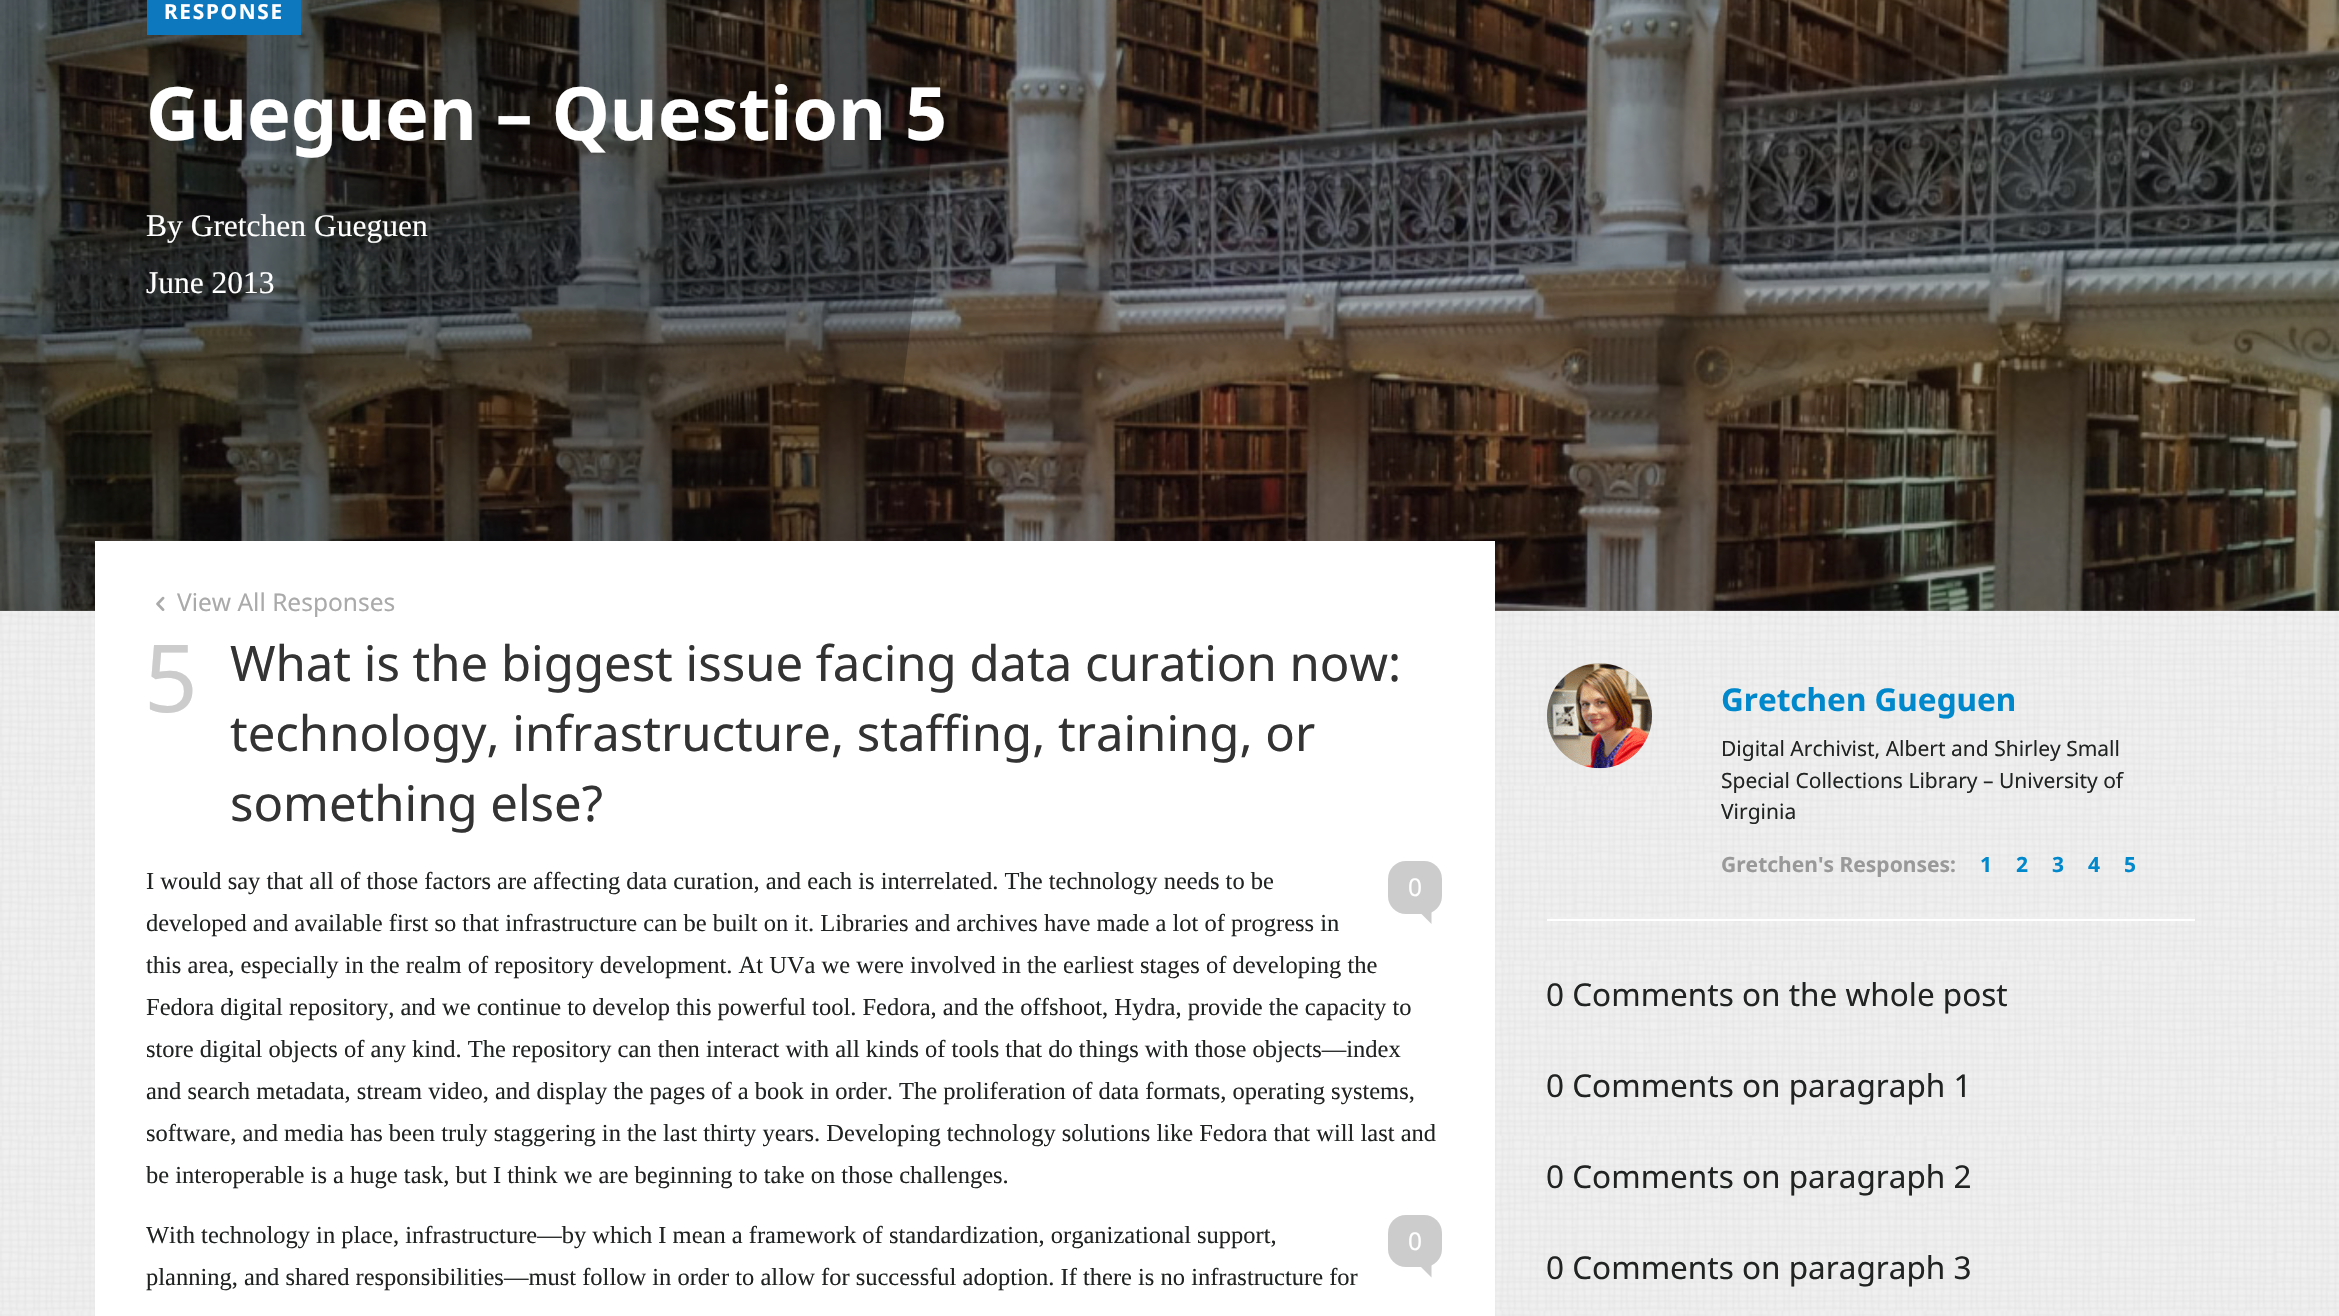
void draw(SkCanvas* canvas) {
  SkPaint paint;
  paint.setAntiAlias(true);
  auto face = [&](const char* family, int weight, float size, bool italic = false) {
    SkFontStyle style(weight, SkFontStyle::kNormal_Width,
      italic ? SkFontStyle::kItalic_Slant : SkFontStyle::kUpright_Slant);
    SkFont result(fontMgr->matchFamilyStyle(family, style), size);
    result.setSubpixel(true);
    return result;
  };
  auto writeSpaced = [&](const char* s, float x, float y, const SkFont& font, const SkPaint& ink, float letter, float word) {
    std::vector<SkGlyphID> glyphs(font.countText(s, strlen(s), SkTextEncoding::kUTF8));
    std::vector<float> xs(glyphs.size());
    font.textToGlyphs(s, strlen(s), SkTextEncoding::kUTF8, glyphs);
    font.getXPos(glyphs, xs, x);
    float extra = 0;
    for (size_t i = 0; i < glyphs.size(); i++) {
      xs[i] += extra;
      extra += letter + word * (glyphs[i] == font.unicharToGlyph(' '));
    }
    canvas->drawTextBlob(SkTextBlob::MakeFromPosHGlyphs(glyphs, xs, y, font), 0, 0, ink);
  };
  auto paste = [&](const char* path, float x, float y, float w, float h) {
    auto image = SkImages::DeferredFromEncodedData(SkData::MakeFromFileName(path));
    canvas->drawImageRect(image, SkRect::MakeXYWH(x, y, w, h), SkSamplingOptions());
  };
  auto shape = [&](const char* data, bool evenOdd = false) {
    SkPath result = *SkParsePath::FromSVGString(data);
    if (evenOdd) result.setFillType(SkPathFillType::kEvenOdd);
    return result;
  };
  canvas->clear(0xffffffff);
  paste("img/1.png", 0, 610, 2339, 706);
  paste("img/2.png", 0, 0, 2339, 611);
  paint.setColor(0x59000000);
  canvas->drawRect(SkRect::MakeXYWH(0, 0, 2339, 611), paint);
  paint.setColor(0x40000000);
  canvas->drawPath(shape("M0-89H962L875 611H0Z"), paint);
  paint.setColor(0xff0d78be);
  canvas->drawRect(SkRect::MakeXYWH(147, 0, 154, 35), paint);
  paint.setColor(0xffffffff);
  canvas->drawRect(SkRect::MakeXYWH(95, 541, 1400, 775), paint);
  paste("img/3.png", 156, 596, 9, 15);
  paint.setColor(0xffcccccc);
  canvas->drawRoundRect(SkRect::MakeXYWH(1388, 861, 54, 53), 18, 18, paint);
  canvas->drawPath(shape("M1417.5 910H1431.5V924Z"), paint);
  canvas->drawRoundRect(SkRect::MakeXYWH(1388, 1215, 54, 52), 18, 18, paint);
  canvas->drawPath(shape("M1417.5 1263.5H1431.5V1277.5Z"), paint);
  canvas->drawCircle(1599.5f, 715.5f, 52.5f, paint);
  paste("img/4.png", 1547, 663, 105, 106);
  paint.setColor(0xffeeeeee);
  canvas->drawRect(SkRect::MakeXYWH(1547, 917, 648, 2), paint);
  paint.setColor(0xffffffff);
  canvas->drawRect(SkRect::MakeXYWH(1547, 919, 648, 2), paint);
  auto f0 = face("Noto Sans", 700, 20.75f);
  writeSpaced("RESPONSE", 164, 19, f0, paint, 1.75f, 0);
  auto f1 = face("Noto Sans", 700, 73.5f);
  canvas->drawString("Gueguen – Question 5", 146, 140, f1, paint);
  auto f2 = face("Liberation Serif", 400, 31.5f);
  canvas->drawString("By Gretchen Gueguen", 146, 236, f2, paint);
  canvas->drawString("June 2013", 146, 293, f2, paint);
  auto f3 = face("Noto Sans", 400, 24.5f);
  paint.setColor(0xffaaaaaa);
  canvas->drawString("View All Responses", 177, 611, f3, paint);
  auto f4 = face("Noto Sans", 400, 94);
  paint.setColor(0xffcccccc);
  canvas->drawString("5", 144, 712, f4, paint);
  auto f5 = face("Noto Sans", 400, 49);
  paint.setColor(0xff333333);
  {
    const struct { const char* s; float x, y; } items[] = {
      {"What is the biggest issue facing data curation now:", 230, 681},
      {"technology, infrastructure, staffing, training, or", 230, 751},
      {"something else?", 230, 821},
    };
    for (auto [s, x, y] : items) {
      canvas->drawString(s, x, y, f5, paint);
    }
  }
  auto f6 = face("Liberation Serif", 400, 24.5f);
  paint.setColor(0xff212323);
  canvas->drawString("I would say that all of those factors are affecting data curation, and each is interrelated. The technology needs to be", 146, 889, f6, paint);
  paint.setColor(0xffffffff);
  canvas->drawString("0", 1408, 896, f3, paint);
  paint.setColor(0xff212323);
  {
    const struct { const char* s; float x, y; } items[] = {
      {"developed and available first so that infrastructure can be built on it. Libraries and archives have made a lot of progress in", 146, 931},
      {"this area, especially in the realm of repository development. At UVa we were involved in the earliest stages of developing the", 146, 973},
      {"Fedora digital repository, and we continue to develop this powerful tool. Fedora, and the offshoot, Hydra, provide the capacity to", 146, 1015},
      {"store digital objects of any kind. The repository can then interact with all kinds of tools that do things with those objects—index", 146, 1057},
      {"and search metadata, stream video, and display the pages of a book in order. The proliferation of data formats, operating systems,", 146, 1099},
      {"software, and media has been truly staggering in the last thirty years. Developing technology solutions like Fedora that will last and", 146, 1141},
      {"be interoperable is a huge task, but I think we are beginning to take on those challenges.", 146, 1183},
      {"With technology in place, infrastructure—by which I mean a framework of standardization, organizational support,", 146, 1243},
    };
    for (auto [s, x, y] : items) {
      canvas->drawString(s, x, y, f6, paint);
    }
  }
  paint.setColor(0xffffffff);
  canvas->drawString("0", 1408, 1250, f3, paint);
  paint.setColor(0xff212323);
  canvas->drawString("planning, and shared responsibilities—must follow in order to allow for successful adoption. If there is no infrastructure for", 146, 1285, f6, paint);
  auto f7 = face("Noto Sans", 700, 31.5f);
  paint.setColor(0xff0088cc);
  canvas->drawString("Gretchen Gueguen", 1721, 711, f7, paint);
  auto f8 = face("Noto Sans", 400, 21);
  paint.setColor(0xff212323);
  {
    const struct { const char* s; float x, y; } items[] = {
      {"Digital Archivist, Albert and Shirley Small", 1721, 756},
      {"Special Collections Library – University of", 1721, 788},
      {"Virginia", 1721, 819},
    };
    for (auto [s, x, y] : items) {
      canvas->drawString(s, x, y, f8, paint);
    }
  }
  auto f9 = face("Noto Sans", 700, 21);
  paint.setColor(0xff999999);
  canvas->drawString("Gretchen's Responses:", 1721, 872, f9, paint);
  paint.setColor(0xff0088cc);
  {
    const struct { const char* s; float x, y; } items[] = {
      {"1", 1980, 872},
      {"2", 2016, 872},
      {"3", 2052, 872},
      {"4", 2088, 872},
      {"5", 2124, 872},
    };
    for (auto [s, x, y] : items) {
      canvas->drawString(s, x, y, f9, paint);
    }
  }
  auto f10 = face("Noto Sans", 400, 31.5f);
  paint.setColor(0xff212323);
  {
    const struct { const char* s; float x, y; } items[] = {
      {"0 Comments on the whole post", 1546, 1006},
      {"0 Comments on paragraph 1", 1546, 1097},
      {"0 Comments on paragraph 2", 1546, 1188},
      {"0 Comments on paragraph 3", 1546, 1279},
    };
    for (auto [s, x, y] : items) {
      canvas->drawString(s, x, y, f10, paint);
    }
  }
}
